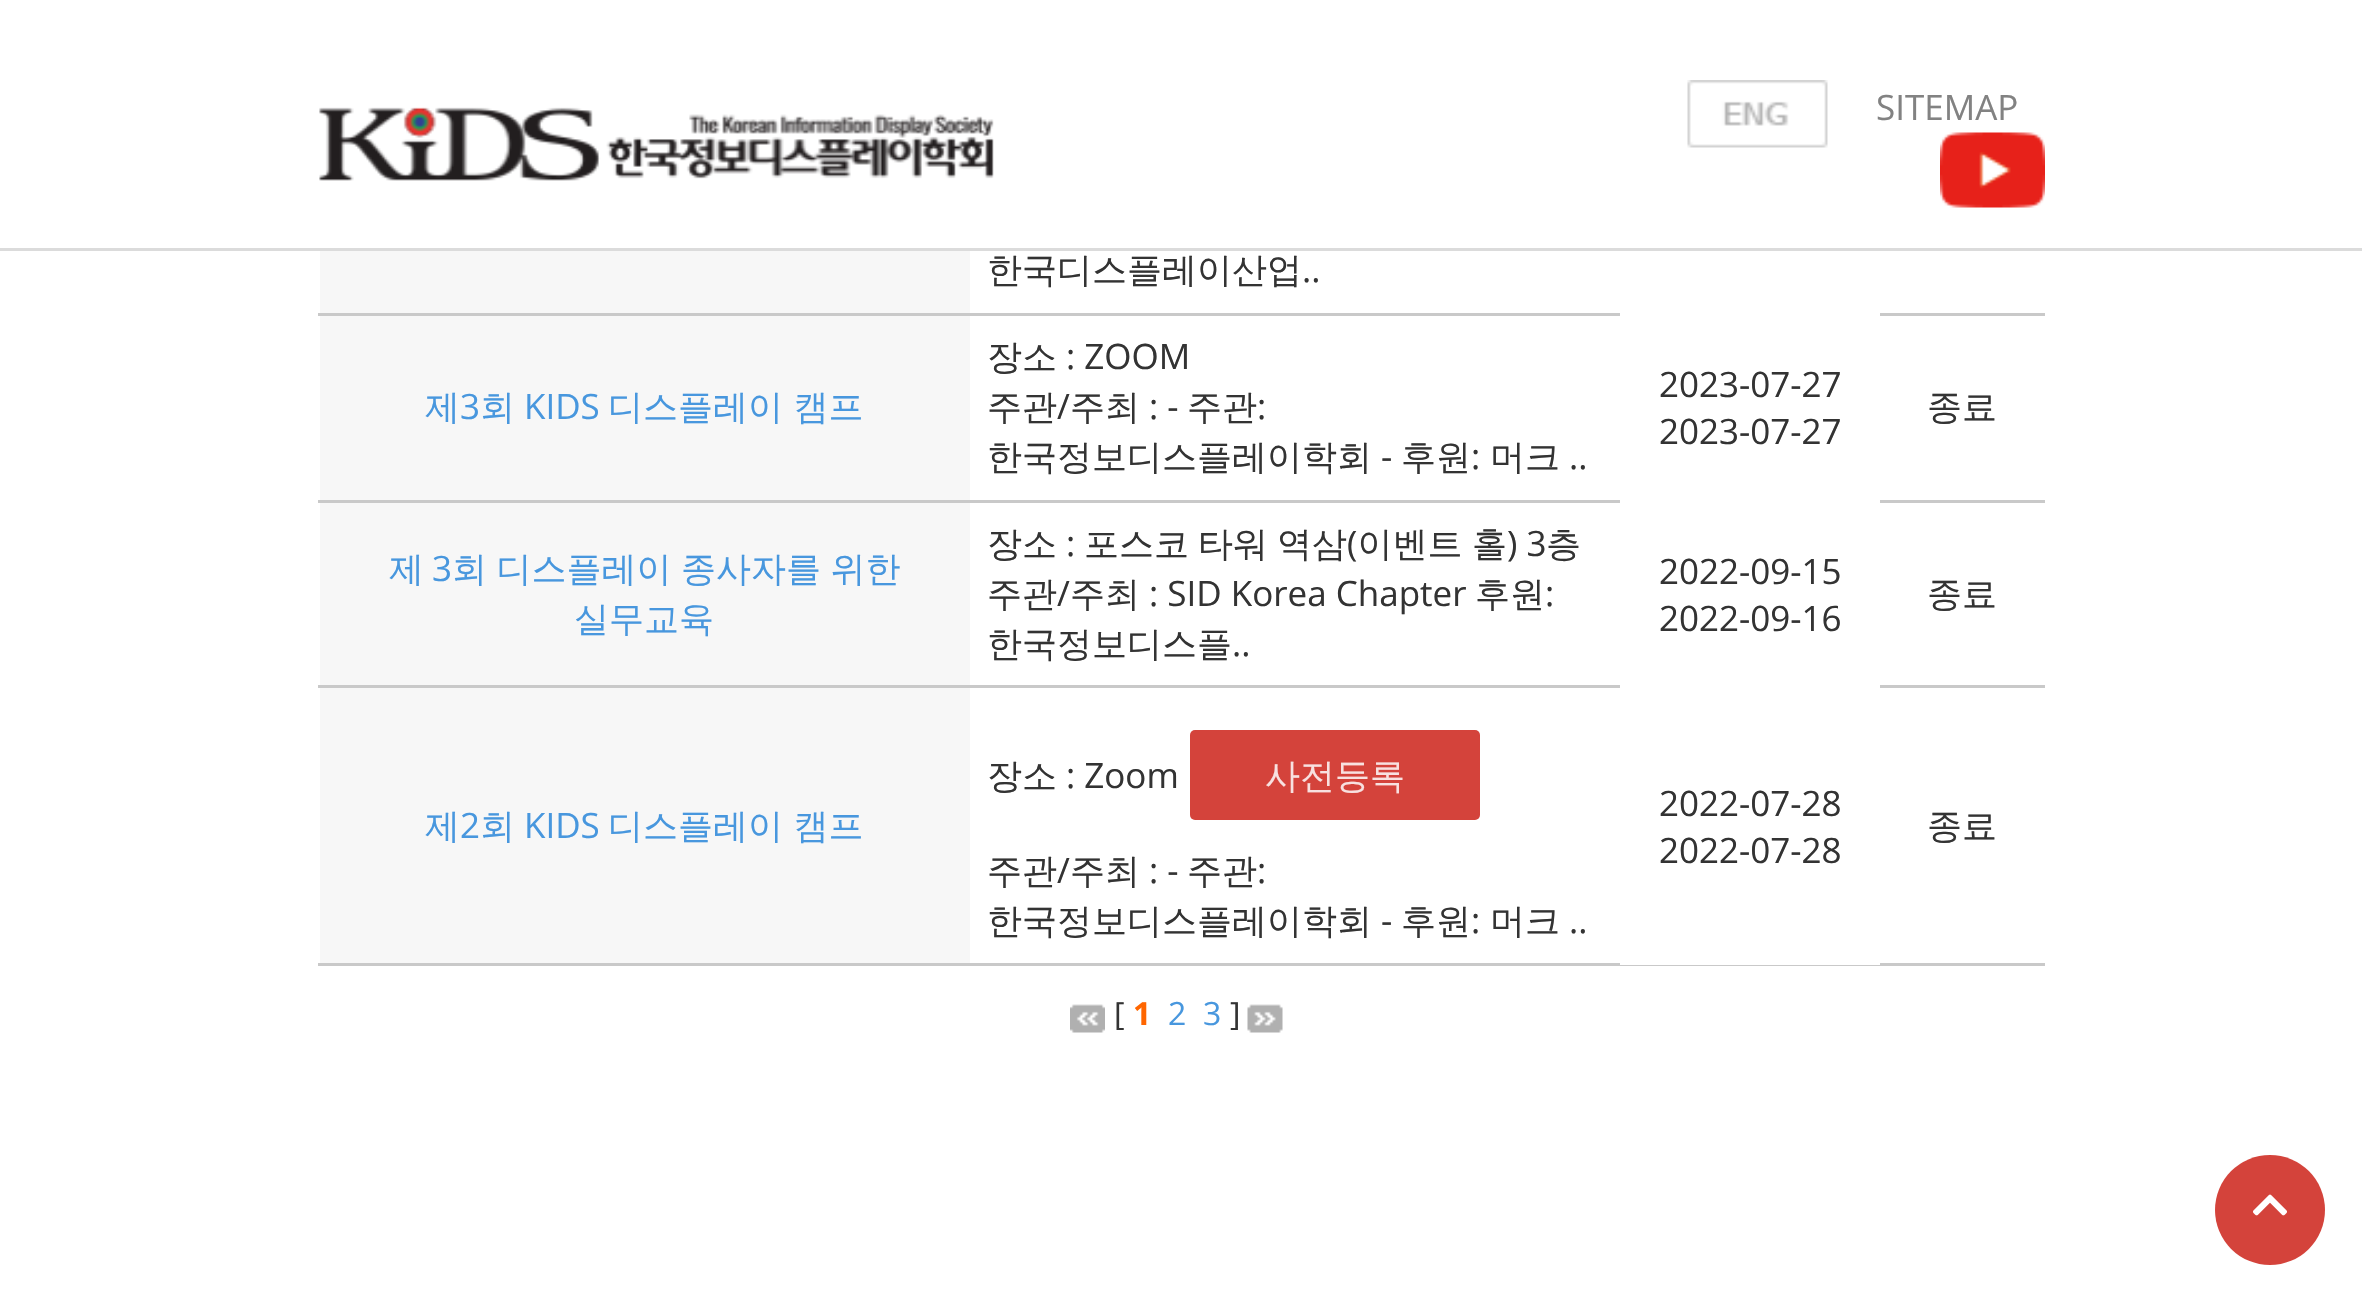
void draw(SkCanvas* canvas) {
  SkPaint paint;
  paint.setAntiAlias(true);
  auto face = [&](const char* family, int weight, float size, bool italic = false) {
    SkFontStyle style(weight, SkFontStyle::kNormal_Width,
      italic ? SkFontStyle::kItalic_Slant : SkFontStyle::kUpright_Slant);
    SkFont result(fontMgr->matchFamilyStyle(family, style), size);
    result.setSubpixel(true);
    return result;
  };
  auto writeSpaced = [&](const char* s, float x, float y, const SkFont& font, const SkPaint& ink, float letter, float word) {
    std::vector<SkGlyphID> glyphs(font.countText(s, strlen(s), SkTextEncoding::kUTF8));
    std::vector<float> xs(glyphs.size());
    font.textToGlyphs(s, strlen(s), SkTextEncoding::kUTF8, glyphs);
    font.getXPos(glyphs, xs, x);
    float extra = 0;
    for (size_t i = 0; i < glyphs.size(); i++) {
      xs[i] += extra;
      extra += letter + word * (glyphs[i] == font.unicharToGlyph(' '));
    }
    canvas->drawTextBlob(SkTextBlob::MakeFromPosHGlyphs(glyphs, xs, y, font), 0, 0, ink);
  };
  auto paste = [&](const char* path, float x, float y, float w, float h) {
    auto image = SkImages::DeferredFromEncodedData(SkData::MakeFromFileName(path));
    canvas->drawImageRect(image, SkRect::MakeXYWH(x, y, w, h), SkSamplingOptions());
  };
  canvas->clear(0xffffffff);
  paint.setColor(0xffdbdbdb);
  canvas->drawRect(SkRect::MakeXYWH(0, 248, 2362, 3), paint);
  paste("img/1.png", 319, 107, 675, 74);
  paste("img/2.png", 1687, 80, 141, 68);
  paste("img/3.png", 1940, 132, 105, 76);
  {
    const struct { float x, y, w, h; SkColor color; } items[] = {
      {320, 251, 650, 62, 0xfff7f7f7},
      {318, 313, 1305, 3, 0xffc9c9c9},
      {1880, 313, 165, 3, 0xffc9c9c9},
      {320, 316, 650, 184, 0xfff7f7f7},
      {318, 500, 1305, 3, 0xffc9c9c9},
      {1620, 313, 3, 3, 0xffffffff},
      {1880, 500, 165, 3, 0xffc9c9c9},
      {320, 503, 650, 182, 0xfff7f7f7},
      {318, 685, 1305, 3, 0xffc9c9c9},
      {1620, 500, 3, 188, 0xffffffff},
      {1880, 685, 165, 3, 0xffc9c9c9},
      {320, 688, 650, 275, 0xfff7f7f7},
    };
    for (auto [x, y, w, h, color] : items) {
      paint.setColor(color);
      canvas->drawRect(SkRect::MakeXYWH(x, y, w, h), paint);
    }
  }
  paint.setColor(0xffd4433b);
  canvas->drawRoundRect(SkRect::MakeXYWH(1190, 730, 290, 90), 5, 5, paint);
  paint.setColor(0xffc9c9c9);
  canvas->drawRect(SkRect::MakeXYWH(318, 963, 1727, 3), paint);
  paint.setColor(0xffffffff);
  canvas->drawRect(SkRect::MakeXYWH(1620, 963, 260, 2), paint);
  paste("img/4.png", 1070, 1004, 35, 29);
  paste("img/5.png", 1247, 1004, 36, 29);
  paint.setColor(0xffd4433b);
  canvas->drawCircle(2270, 1210, 55, paint);
  paste("img/6.png", 2253, 1194, 34, 22);
  auto f0 = face("Open Sans", 400, 35);
  paint.setColor(0xff828282);
  canvas->drawString("SITEMAP", 1876, 120, f0, paint);
  auto f1 = face("WenQuanYi Zen Hei", 500, 35);
  paint.setColor(0xff333333);
  canvas->drawString("한국디스플레이산업", 987, 282, f1, paint);
  canvas->drawString("..", 1302, 282, f0, paint);
  paint.setColor(0xff4897de);
  canvas->drawString("제", 425, 419, f1, paint);
  canvas->drawString("3", 460, 419, f0, paint);
  canvas->drawString("회", 480, 419, f1, paint);
  canvas->drawString("KIDS", 524, 419, f0, paint);
  canvas->drawString("디스플레이 캠프", 608, 419, f1, paint);
  paint.setColor(0xff333333);
  canvas->drawString("장소", 987, 369, f1, paint);
  canvas->drawString(": ZOOM", 1066, 369, f0, paint);
  canvas->drawString("주관", 987, 419, f1, paint);
  canvas->drawString("/", 1057, 419, f0, paint);
  canvas->drawString("주최", 1070, 419, f1, paint);
  canvas->drawString(": -", 1149, 419, f0, paint);
  canvas->drawString("주관", 1187, 419, f1, paint);
  canvas->drawString(":", 1257, 419, f0, paint);
  canvas->drawString("한국정보디스플레이학회", 987, 469, f1, paint);
  canvas->drawString("-", 1381, 469, f0, paint);
  canvas->drawString("후원", 1401, 469, f1, paint);
  canvas->drawString(":", 1471, 469, f0, paint);
  canvas->drawString("머크", 1490, 469, f1, paint);
  {
    const struct { const char* s; float x, y; } items[] = {
      {"..", 1569, 469},
      {"2023-07-27", 1659, 397},
      {"2023-07-27", 1659, 444},
    };
    for (auto [s, x, y] : items) {
      canvas->drawString(s, x, y, f0, paint);
    }
  }
  canvas->drawString("종료", 1927, 419, f1, paint);
  paint.setColor(0xff4897de);
  canvas->drawString("제", 389, 581, f1, paint);
  canvas->drawString("3", 432, 581, f0, paint);
  writeSpaced("회 디스플레이 종사자를 위한", 452, 581, f1, paint, 0, -1);
  canvas->drawString("실무교육", 574, 631, f1, paint);
  paint.setColor(0xff333333);
  {
    const struct { const char* s; float x, y; } items[] = {
      {"장소", 987, 556},
      {"타워", 1198, 556},
      {"역삼 이벤트", 1277, 556},
      {"홀", 1472, 556},
    };
    for (auto [s, x, y] : items) {
      canvas->drawString(s, x, y, f1, paint);
    }
  }
  canvas->drawString(") 3", 1507, 556, f0, paint);
  canvas->drawString("층", 1546, 556, f1, paint);
  canvas->drawString(":", 1066, 556, f0, paint);
  canvas->drawString("포스코", 1084, 556, f1, paint);
  canvas->drawString("(", 1347, 556, f0, paint);
  canvas->drawString("주관", 987, 606, f1, paint);
  canvas->drawString("/", 1057, 606, f0, paint);
  canvas->drawString("주최", 1070, 606, f1, paint);
  canvas->drawString(": SID Korea Chapter", 1149, 606, f0, paint);
  canvas->drawString("후원", 1475, 606, f1, paint);
  canvas->drawString(":", 1545, 606, f0, paint);
  canvas->drawString("한국정보디스플", 987, 656, f1, paint);
  {
    const struct { const char* s; float x, y; } items[] = {
      {"..", 1232, 656},
      {"2022-09-15", 1659, 584},
      {"2022-09-16", 1659, 631},
    };
    for (auto [s, x, y] : items) {
      canvas->drawString(s, x, y, f0, paint);
    }
  }
  canvas->drawString("종료", 1927, 606, f1, paint);
  paint.setColor(0xff4897de);
  canvas->drawString("제", 425, 838, f1, paint);
  canvas->drawString("2", 460, 838, f0, paint);
  canvas->drawString("회", 480, 838, f1, paint);
  canvas->drawString("KIDS", 524, 838, f0, paint);
  canvas->drawString("디스플레이 캠프", 608, 838, f1, paint);
  paint.setColor(0xff333333);
  canvas->drawString("장소", 987, 788, f1, paint);
  canvas->drawString(": Zoom", 1066, 788, f0, paint);
  paint.setColor(0xfff8e1e0);
  canvas->drawString("사전등록", 1265, 788, f1, paint);
  paint.setColor(0xff333333);
  canvas->drawString("주관", 987, 883, f1, paint);
  canvas->drawString("/", 1057, 883, f0, paint);
  canvas->drawString("주최", 1070, 883, f1, paint);
  canvas->drawString(": -", 1149, 883, f0, paint);
  canvas->drawString("주관", 1187, 883, f1, paint);
  canvas->drawString(":", 1257, 883, f0, paint);
  canvas->drawString("한국정보디스플레이학회", 987, 933, f1, paint);
  canvas->drawString("-", 1381, 933, f0, paint);
  canvas->drawString("후원", 1401, 933, f1, paint);
  canvas->drawString(":", 1471, 933, f0, paint);
  canvas->drawString("머크", 1490, 933, f1, paint);
  {
    const struct { const char* s; float x, y; } items[] = {
      {"..", 1569, 933},
      {"2022-07-28", 1659, 816},
      {"2022-07-28", 1659, 863},
    };
    for (auto [s, x, y] : items) {
      canvas->drawString(s, x, y, f0, paint);
    }
  }
  canvas->drawString("종료", 1927, 838, f1, paint);
  auto f2 = face("Open Sans", 400, 32);
  canvas->drawString("[", 1114, 1025, f2, paint);
  auto f3 = face("Open Sans", 700, 32);
  paint.setColor(0xffff6600);
  canvas->drawString("1", 1133, 1025, f3, paint);
  paint.setColor(0xff4897de);
  canvas->drawString("2", 1168, 1025, f2, paint);
  canvas->drawString("3", 1203, 1025, f2, paint);
  paint.setColor(0xff333333);
  canvas->drawString("]", 1230, 1025, f2, paint);
}
